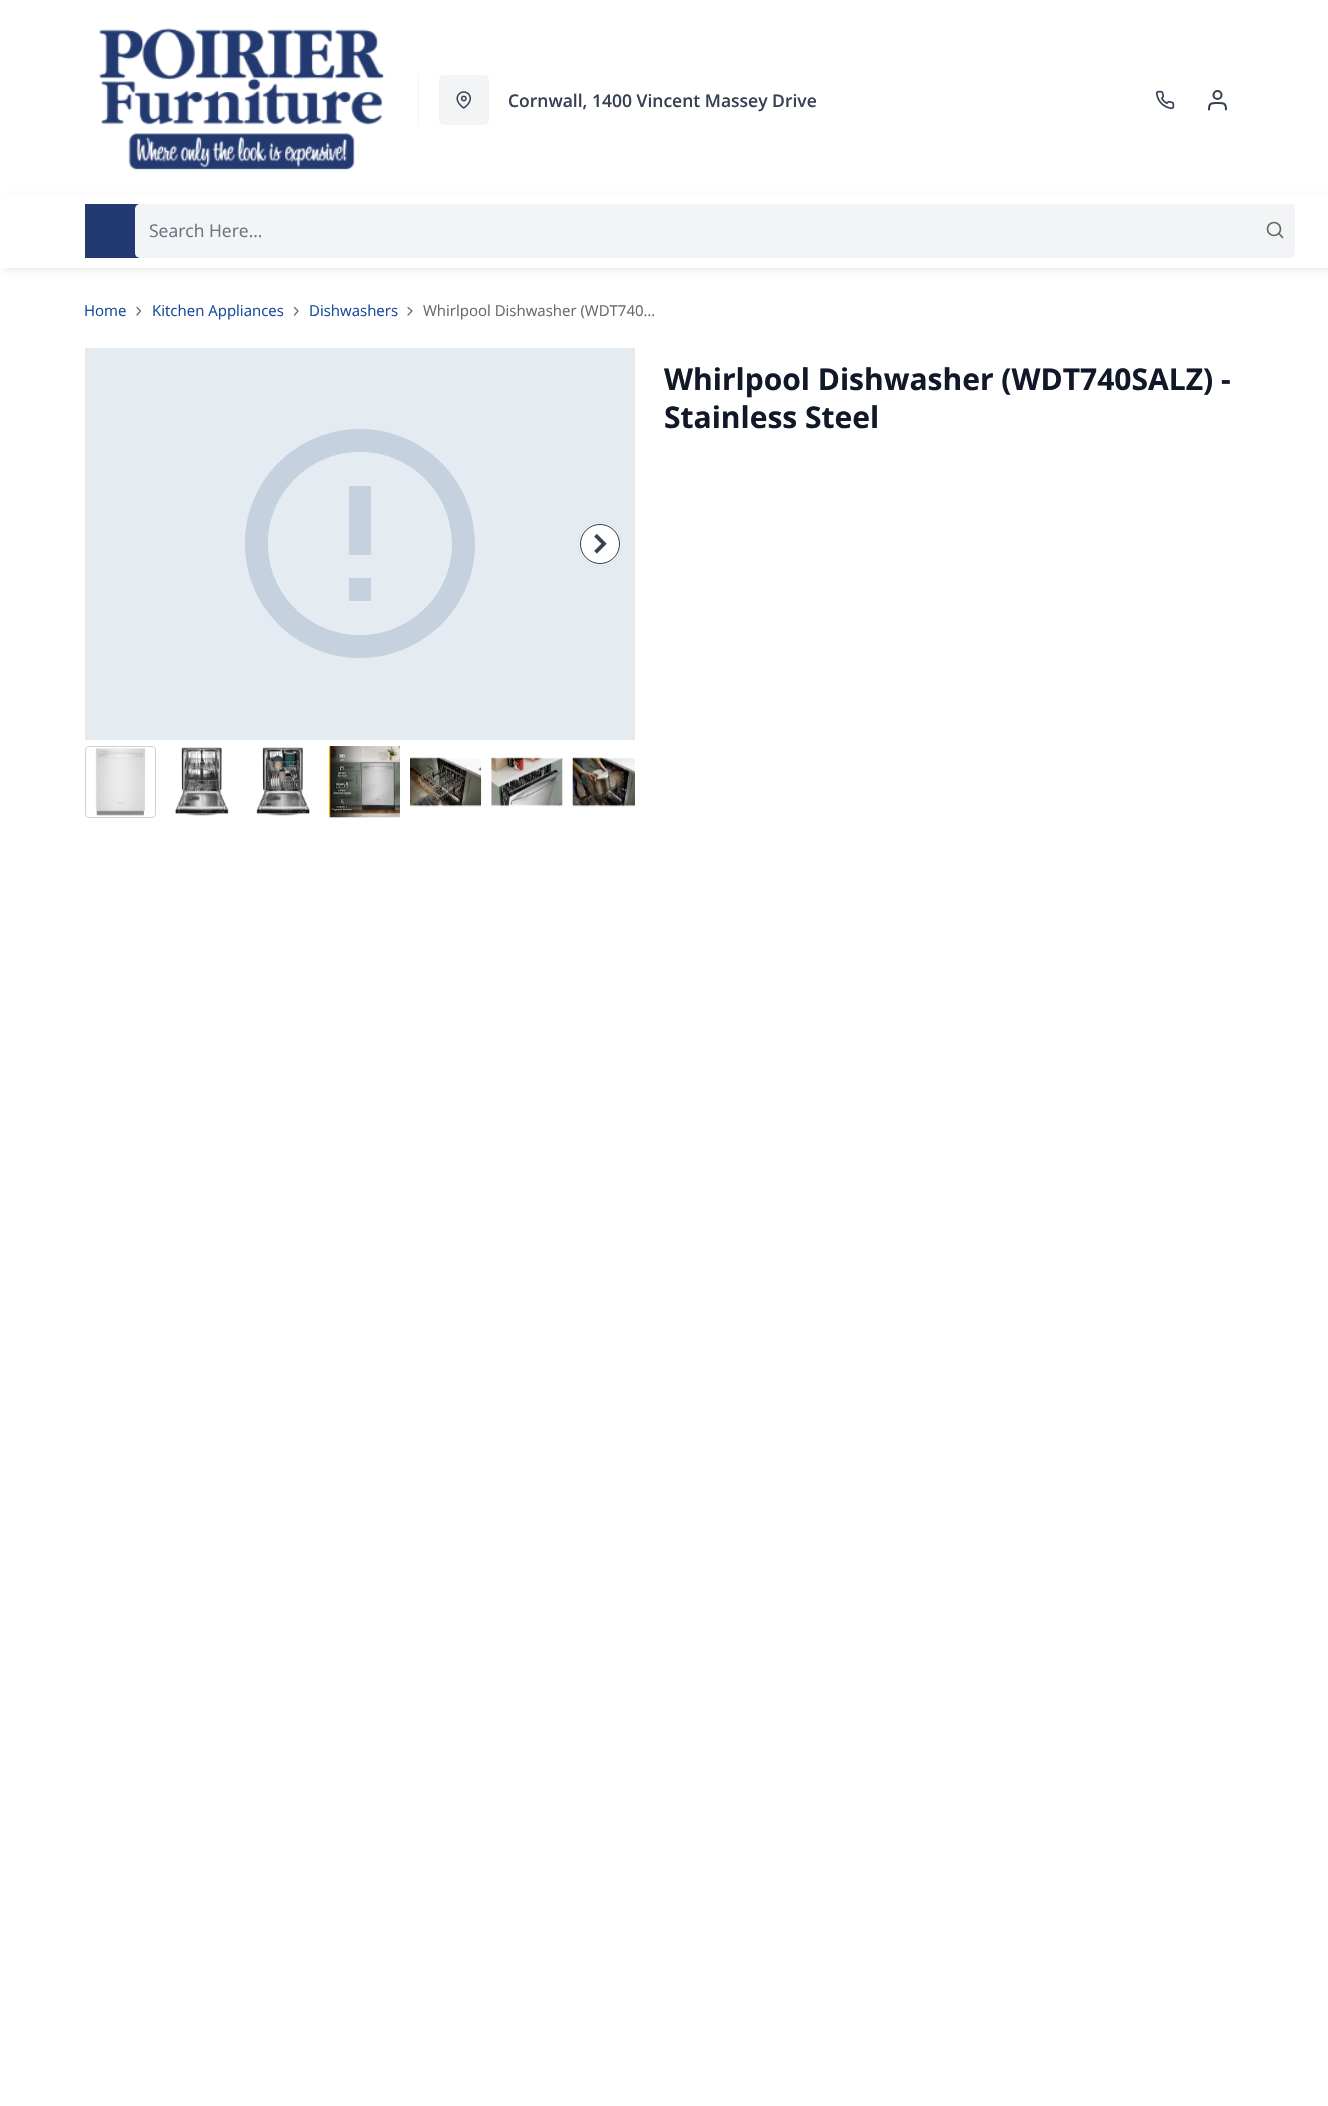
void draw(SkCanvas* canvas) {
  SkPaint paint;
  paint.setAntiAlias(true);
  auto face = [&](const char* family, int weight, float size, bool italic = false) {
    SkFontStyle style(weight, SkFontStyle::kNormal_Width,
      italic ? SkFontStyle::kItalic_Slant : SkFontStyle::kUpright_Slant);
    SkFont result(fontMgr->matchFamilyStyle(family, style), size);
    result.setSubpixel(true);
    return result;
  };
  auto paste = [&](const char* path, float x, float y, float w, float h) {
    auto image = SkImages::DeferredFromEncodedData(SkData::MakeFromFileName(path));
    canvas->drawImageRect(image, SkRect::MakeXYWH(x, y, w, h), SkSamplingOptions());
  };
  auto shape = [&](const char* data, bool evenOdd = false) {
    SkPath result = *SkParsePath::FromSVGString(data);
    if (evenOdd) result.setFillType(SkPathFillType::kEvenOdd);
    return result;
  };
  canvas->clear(0xffffffff);
  paste("img/1.png", 99, 28, 286, 142);
  paint.setColor(0xfff3f4f6);
  canvas->drawRect(SkRect::MakeXYWH(418, 75, 1, 50), paint);
  canvas->drawRoundRect(SkRect::MakeXYWH(439, 75, 50, 50), 5, 5, paint);
  paste("img/2.png", 456, 91, 16, 18);
  paste("img/3.png", 1155, 90, 20, 20);
  paint.setStroke(true);
  paint.setStrokeWidth(2.1f);
  paint.setStrokeCap(SkPaint::kRound_Cap);
  paint.setStrokeJoin(SkPaint::kRound_Join);
  paint.setColor(0xff374151);
  canvas->drawPath(shape("M1226 109.5C1226 102.5 1223.5 103 1217.5 103C1211.5 103 1209 102.5 1209 109.5"), paint);
  paint.setStrokeCap(SkPaint::kButt_Cap);
  paint.setStrokeJoin(SkPaint::kMiter_Join);
  canvas->drawCircle(1217.5f, 95, 4, paint);
  paint.setStroke(false);
  paint.setColor(0x12000000);
  paint.setMaskFilter(SkMaskFilter::MakeBlur(kNormal_SkBlurStyle, 3));
  canvas->drawRect(SkRect::MakeXYWH(3, 198, 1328, 73), paint);
  paint.setMaskFilter(nullptr);
  paint.setColor(0xffffffff);
  canvas->drawRect(SkRect::MakeXYWH(0, 195, 1328, 73), paint);
  paint.setColor(0xff233a70);
  canvas->drawRect(SkRect::MakeXYWH(85, 204, 55, 54), paint);
  paint.setColor(0xfff3f4f6);
  canvas->drawRoundRect(SkRect::MakeXYWH(135, 204, 1160, 54), 5, 5, paint);
  paint.setStroke(true);
  paint.setStrokeWidth(1.7f);
  paint.setColor(0xff656a67);
  canvas->drawCircle(1274, 229, 6.5f, paint);
  paint.setStrokeCap(SkPaint::kRound_Cap);
  paint.setStrokeJoin(SkPaint::kRound_Join);
  canvas->drawPath(shape("M1282.5 237.5L1279 233.5"), paint);
  paint.setStrokeWidth(1.2f);
  canvas->drawPath(shape("M137 315L140.5 311L137 307.5"), paint);
  canvas->drawPath(shape("M294.5 315L298 311L294.5 307.5"), paint);
  canvas->drawPath(shape("M408 315L412 311L408 307.5"), paint);
  paint.setStroke(false);
  paint.setColor(0xffe4ebf1);
  canvas->drawRect(SkRect::MakeXYWH(85, 348, 550, 392), paint);
  paint.setColor(0xffc6d1e0);
  canvas->drawPath(shape("M349 578H371V601H349ZM349 486H371V555H349ZM360 429C297 429 245 480 245 544C245 607 297 658 360 658C423 658 475 607 475 544C475 480 423 429 360 429ZM360 635C309 635 268 594 268 544C268 493 309 452 360 452C411 452 452 493 452 544C452 594 411 635 360 635Z"), paint);
  paint.setColor(0xffffffff);
  canvas->drawCircle(600, 544, 19.5f, paint);
  paint.setStroke(true);
  paint.setStrokeWidth(1);
  paint.setStrokeCap(SkPaint::kButt_Cap);
  paint.setStrokeJoin(SkPaint::kMiter_Join);
  paint.setColor(0xff374151);
  canvas->drawCircle(600, 544, 19.5f, paint);
  paste("img/4.png", 594, 533, 13, 21);
  paste("img/5.png", 95, 748, 51, 68);
  paint.setStroke(false);
  paint.setColor(0x80ffffff);
  canvas->drawRoundRect(SkRect::MakeXYWH(85.5f, 746.5f, 70, 71), 3.5f, 3.5f, paint);
  paint.setStroke(true);
  paint.setColor(0xffced1d7);
  canvas->drawRoundRect(SkRect::MakeXYWH(85.5f, 746.5f, 70, 71), 3.5f, 3.5f, paint);
  paste("img/6.png", 175, 747, 54, 69);
  paste("img/7.png", 256, 747, 54, 69);
  paste("img/8.png", 328, 746, 72, 72);
  paste("img/9.png", 410, 756, 72, 52);
  paste("img/10.png", 491, 757, 72, 50);
  paste("img/11.png", 572, 756, 63, 53);
  auto f0 = face("Open Sans", 600, 17.5f);
  paint.setStroke(false);
  paint.setColor(0xff374151);
  canvas->drawString("Cornwall, 1400 Vincent Massey Drive", 508, 107, f0, paint);
  auto f1 = face("Open Sans", 400, 17.5f);
  paint.setColor(0xff6b7280);
  canvas->drawString("Search Here...", 149, 237, f1, paint);
  auto f2 = face("Open Sans", 400, 15);
  paint.setColor(0xff174b9e);
  {
    const struct { const char* s; float x, y; } items[] = {
      {"Home", 84, 316},
      {"Kitchen Appliances", 152, 316},
      {"Dishwashers", 309, 316},
    };
    for (auto [s, x, y] : items) {
      canvas->drawString(s, x, y, f2, paint);
    }
  }
  paint.setColor(0xff656a67);
  canvas->drawString("Whirlpool Dishwasher (WDT740…", 423, 316, f2, paint);
  auto f3 = face("Open Sans", 700, 30);
  paint.setColor(0xff111827);
  canvas->drawString("Whirlpool Dishwasher (WDT740SALZ) -", 664, 390, f3, paint);
  canvas->drawString("Stainless Steel", 664, 428, f3, paint);
}
